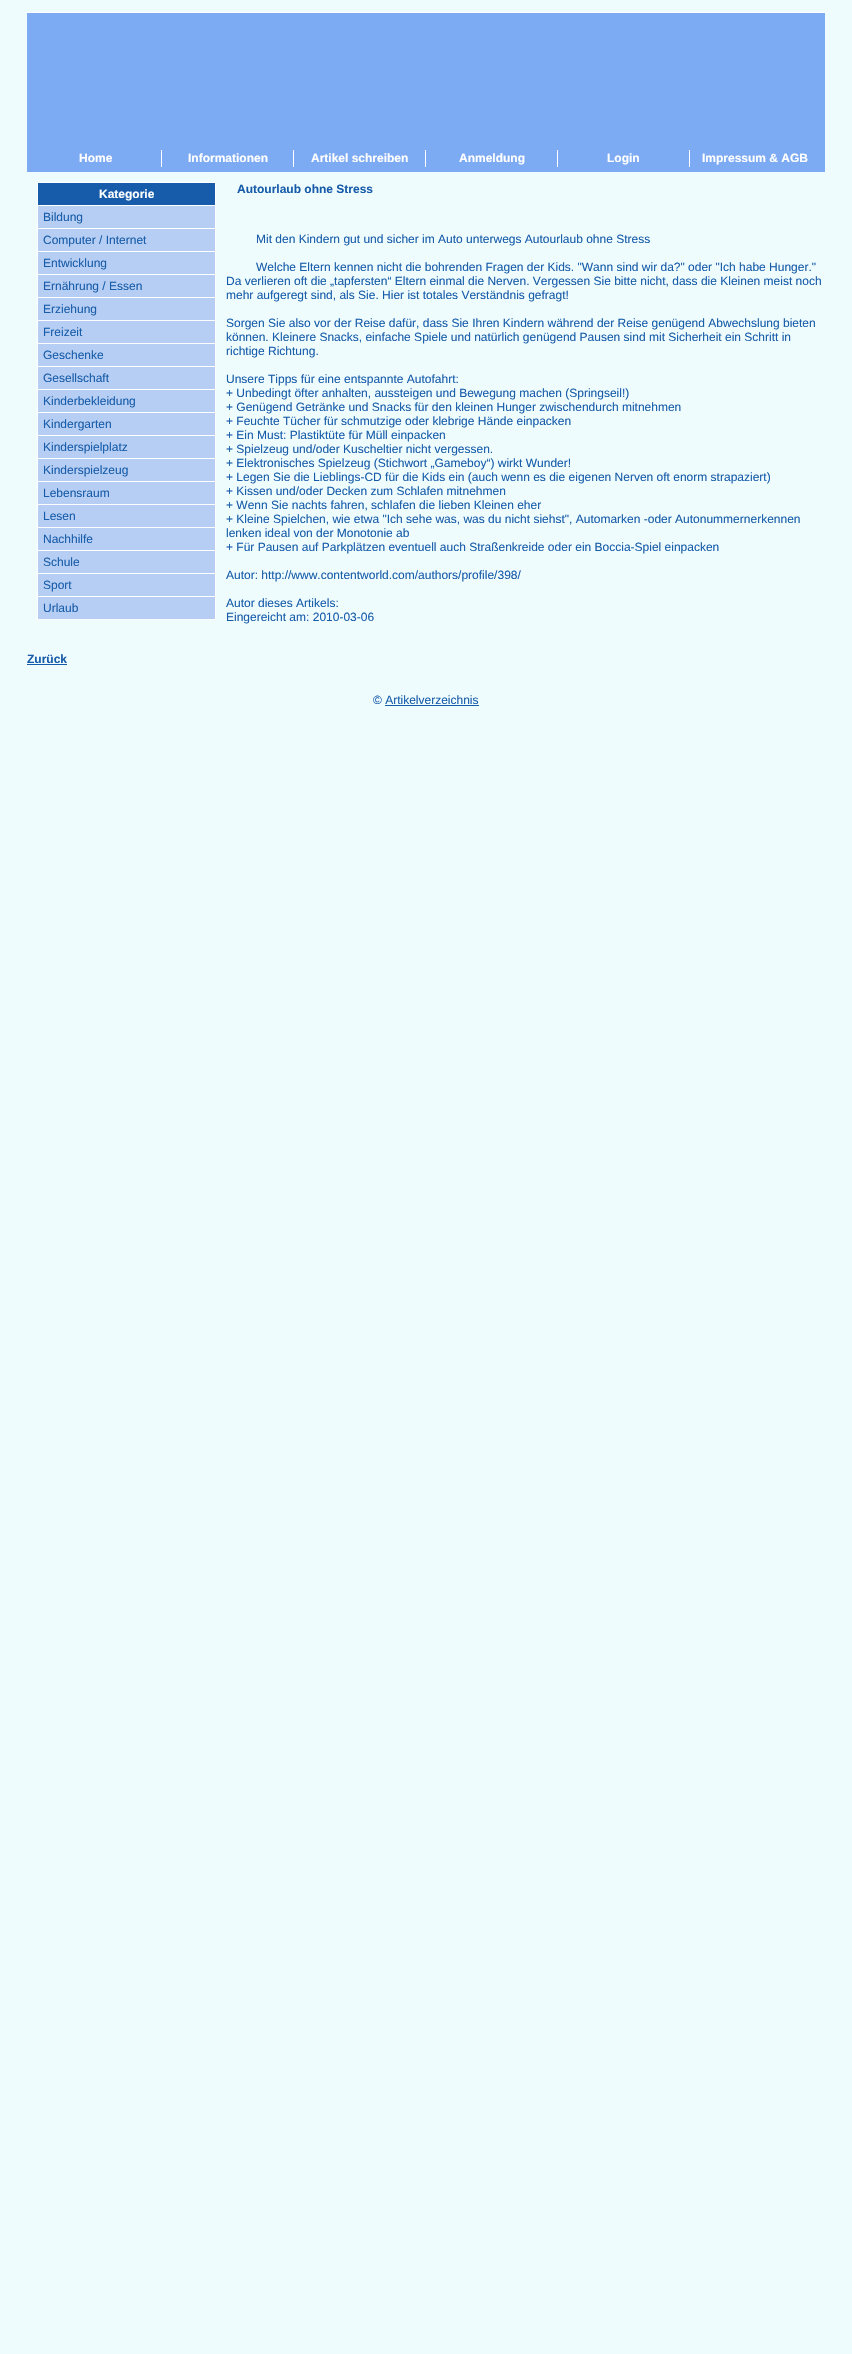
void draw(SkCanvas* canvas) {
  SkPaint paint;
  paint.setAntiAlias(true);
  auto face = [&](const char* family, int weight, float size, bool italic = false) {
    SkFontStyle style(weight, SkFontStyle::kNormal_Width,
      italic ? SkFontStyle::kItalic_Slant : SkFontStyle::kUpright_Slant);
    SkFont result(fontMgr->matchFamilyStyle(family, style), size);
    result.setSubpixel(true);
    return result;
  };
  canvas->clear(0xffeffcfd);
  {
    const struct { float x, y, w, h; SkColor color; } items[] = {
      {27, 13, 798, 159, 0xff7caaf3},
      {27, 12, 798, 1, 0xffffffff},
      {161, 150, 1, 17, 0xffffffff},
      {293, 150, 1, 17, 0xffffffff},
      {425, 150, 1, 17, 0xffffffff},
      {557, 150, 1, 17, 0xffffffff},
      {689, 150, 1, 17, 0xffffffff},
    };
    for (auto [x, y, w, h, color] : items) {
      paint.setColor(color);
      canvas->drawRect(SkRect::MakeXYWH(x, y, w, h), paint);
    }
  }
  paint.setColor(0xff175caa);
  canvas->drawRect(SkRect::MakeXYWH(37.5f, 182.5f, 178, 23), paint);
  paint.setStroke(true);
  paint.setStrokeWidth(1);
  paint.setColor(0xffffffff);
  canvas->drawRect(SkRect::MakeXYWH(37.5f, 182.5f, 178, 23), paint);
  paint.setStroke(false);
  {
    const struct { float x, y, w, h; SkColor color; } items[] = {
      {38, 206, 177, 22, 0xffb6cef3},
      {215, 206, 1, 414, 0xffffffff},
      {37, 228, 179, 1, 0xffffffff},
      {37, 206, 1, 23, 0xffffffff},
      {38, 229, 177, 22, 0xffb6cef3},
      {37, 251, 179, 1, 0xffffffff},
      {37, 229, 1, 23, 0xffffffff},
      {38, 252, 177, 22, 0xffb6cef3},
      {37, 274, 179, 1, 0xffffffff},
      {37, 252, 1, 23, 0xffffffff},
      {38, 275, 177, 22, 0xffb6cef3},
      {37, 297, 179, 1, 0xffffffff},
      {37, 275, 1, 23, 0xffffffff},
      {38, 298, 177, 22, 0xffb6cef3},
      {37, 320, 179, 1, 0xffffffff},
      {37, 298, 1, 23, 0xffffffff},
      {38, 321, 177, 22, 0xffb6cef3},
      {37, 343, 179, 1, 0xffffffff},
      {37, 321, 1, 23, 0xffffffff},
      {38, 344, 177, 22, 0xffb6cef3},
      {37, 366, 179, 1, 0xffffffff},
      {37, 344, 1, 23, 0xffffffff},
      {38, 367, 177, 22, 0xffb6cef3},
      {37, 389, 179, 1, 0xffffffff},
      {37, 367, 1, 23, 0xffffffff},
      {38, 390, 177, 22, 0xffb6cef3},
      {37, 412, 179, 1, 0xffffffff},
      {37, 390, 1, 23, 0xffffffff},
      {38, 413, 177, 22, 0xffb6cef3},
      {37, 435, 179, 1, 0xffffffff},
      {37, 413, 1, 23, 0xffffffff},
      {38, 436, 177, 22, 0xffb6cef3},
      {37, 458, 179, 1, 0xffffffff},
      {37, 436, 1, 23, 0xffffffff},
      {38, 459, 177, 22, 0xffb6cef3},
      {37, 481, 179, 1, 0xffffffff},
      {37, 459, 1, 23, 0xffffffff},
      {38, 482, 177, 22, 0xffb6cef3},
      {37, 504, 179, 1, 0xffffffff},
      {37, 482, 1, 23, 0xffffffff},
      {38, 505, 177, 22, 0xffb6cef3},
      {37, 527, 179, 1, 0xffffffff},
      {37, 505, 1, 23, 0xffffffff},
      {38, 528, 177, 22, 0xffb6cef3},
      {37, 550, 179, 1, 0xffffffff},
      {37, 528, 1, 23, 0xffffffff},
      {38, 551, 177, 22, 0xffb6cef3},
      {37, 573, 179, 1, 0xffffffff},
      {37, 551, 1, 23, 0xffffffff},
      {38, 574, 177, 22, 0xffb6cef3},
      {37, 596, 179, 1, 0xffffffff},
      {37, 574, 1, 23, 0xffffffff},
      {38, 597, 177, 22, 0xffb6cef3},
      {37, 619, 179, 1, 0xffffffff},
      {37, 597, 1, 23, 0xffffffff},
      {27, 664, 40, 1, 0xff175caa},
      {385, 705, 94, 1, 0xff175caa},
    };
    for (auto [x, y, w, h, color] : items) {
      paint.setColor(color);
      canvas->drawRect(SkRect::MakeXYWH(x, y, w, h), paint);
    }
  }
  auto f0 = face("Liberation Sans", 700, 12);
  paint.setColor(0xffffffff);
  {
    const struct { const char* s; float x, y; } items[] = {
      {"Home", 79, 162},
      {"Informationen", 188, 162},
      {"Artikel schreiben", 311, 162},
      {"Anmeldung", 459, 162},
      {"Login", 607, 162},
      {"Impressum & AGB", 702, 162},
      {"Kategorie", 99, 198},
    };
    for (auto [s, x, y] : items) {
      canvas->drawString(s, x, y, f0, paint);
    }
  }
  auto f1 = face("Liberation Sans", 400, 12);
  paint.setColor(0xff175caa);
  {
    const struct { const char* s; float x, y; } items[] = {
      {"Bildung", 43, 221},
      {"Computer / Internet", 43, 244},
      {"Entwicklung", 43, 267},
      {"Ernährung / Essen", 43, 290},
      {"Erziehung", 43, 313},
      {"Freizeit", 43, 336},
      {"Geschenke", 43, 359},
      {"Gesellschaft", 43, 382},
      {"Kinderbekleidung", 43, 405},
      {"Kindergarten", 43, 428},
      {"Kinderspielplatz", 43, 451},
      {"Kinderspielzeug", 43, 474},
      {"Lebensraum", 43, 497},
      {"Lesen", 43, 520},
      {"Nachhilfe", 43, 543},
      {"Schule", 43, 566},
      {"Sport", 43, 589},
      {"Urlaub", 43, 612},
    };
    for (auto [s, x, y] : items) {
      canvas->drawString(s, x, y, f1, paint);
    }
  }
  canvas->drawString("Autourlaub ohne Stress", 237, 193, f0, paint);
  {
    const struct { const char* s; float x, y; } items[] = {
      {"Mit den Kindern gut und sicher im Auto unterwegs Autourlaub ohne Stress", 256, 243},
      {"Welche Eltern kennen nicht die bohrenden Fragen der Kids. \"Wann sind wir da?\" oder \"Ich habe Hunger.\"", 256, 271},
      {"Da verlieren oft die „tapfersten“ Eltern einmal die Nerven. Vergessen Sie bitte nicht, dass die Kleinen meist noch", 226, 285},
      {"mehr aufgeregt sind, als Sie. Hier ist totales Verständnis gefragt!", 226, 299},
      {"Sorgen Sie also vor der Reise dafür, dass Sie Ihren Kindern während der Reise genügend Abwechslung bieten", 226, 327},
      {"können. Kleinere Snacks, einfache Spiele und natürlich genügend Pausen sind mit Sicherheit ein Schritt in", 226, 341},
      {"richtige Richtung.", 226, 355},
      {"Unsere Tipps für eine entspannte Autofahrt:", 226, 383},
      {"+ Unbedingt öfter anhalten, aussteigen und Bewegung machen (Springseil!)", 226, 397},
      {"+ Genügend Getränke und Snacks für den kleinen Hunger zwischendurch mitnehmen", 226, 411},
      {"+ Feuchte Tücher für schmutzige oder klebrige Hände einpacken", 226, 425},
      {"+ Ein Must: Plastiktüte für Müll einpacken", 226, 439},
      {"+ Spielzeug und/oder Kuscheltier nicht vergessen.", 226, 453},
      {"+ Elektronisches Spielzeug (Stichwort „Gameboy“) wirkt Wunder!", 226, 467},
      {"+ Legen Sie die Lieblings-CD für die Kids ein (auch wenn es die eigenen Nerven oft enorm strapaziert)", 226, 481},
      {"+ Kissen und/oder Decken zum Schlafen mitnehmen", 226, 495},
      {"+ Wenn Sie nachts fahren, schlafen die lieben Kleinen eher", 226, 509},
      {"+ Kleine Spielchen, wie etwa \"Ich sehe was, was du nicht siehst\", Automarken -oder Autonummernerkennen", 226, 523},
      {"lenken ideal von der Monotonie ab", 226, 537},
      {"+ Für Pausen auf Parkplätzen eventuell auch Straßenkreide oder ein Boccia-Spiel einpacken", 226, 551},
      {"Autor: http://www.contentworld.com/authors/profile/398/", 226, 579},
      {"Autor dieses Artikels:", 226, 607},
      {"Eingereicht am: 2010-03-06", 226, 621},
    };
    for (auto [s, x, y] : items) {
      canvas->drawString(s, x, y, f1, paint);
    }
  }
  canvas->drawString("Zurück", 27, 663, f0, paint);
  canvas->drawString("© Artikelverzeichnis", 373, 704, f1, paint);
}
